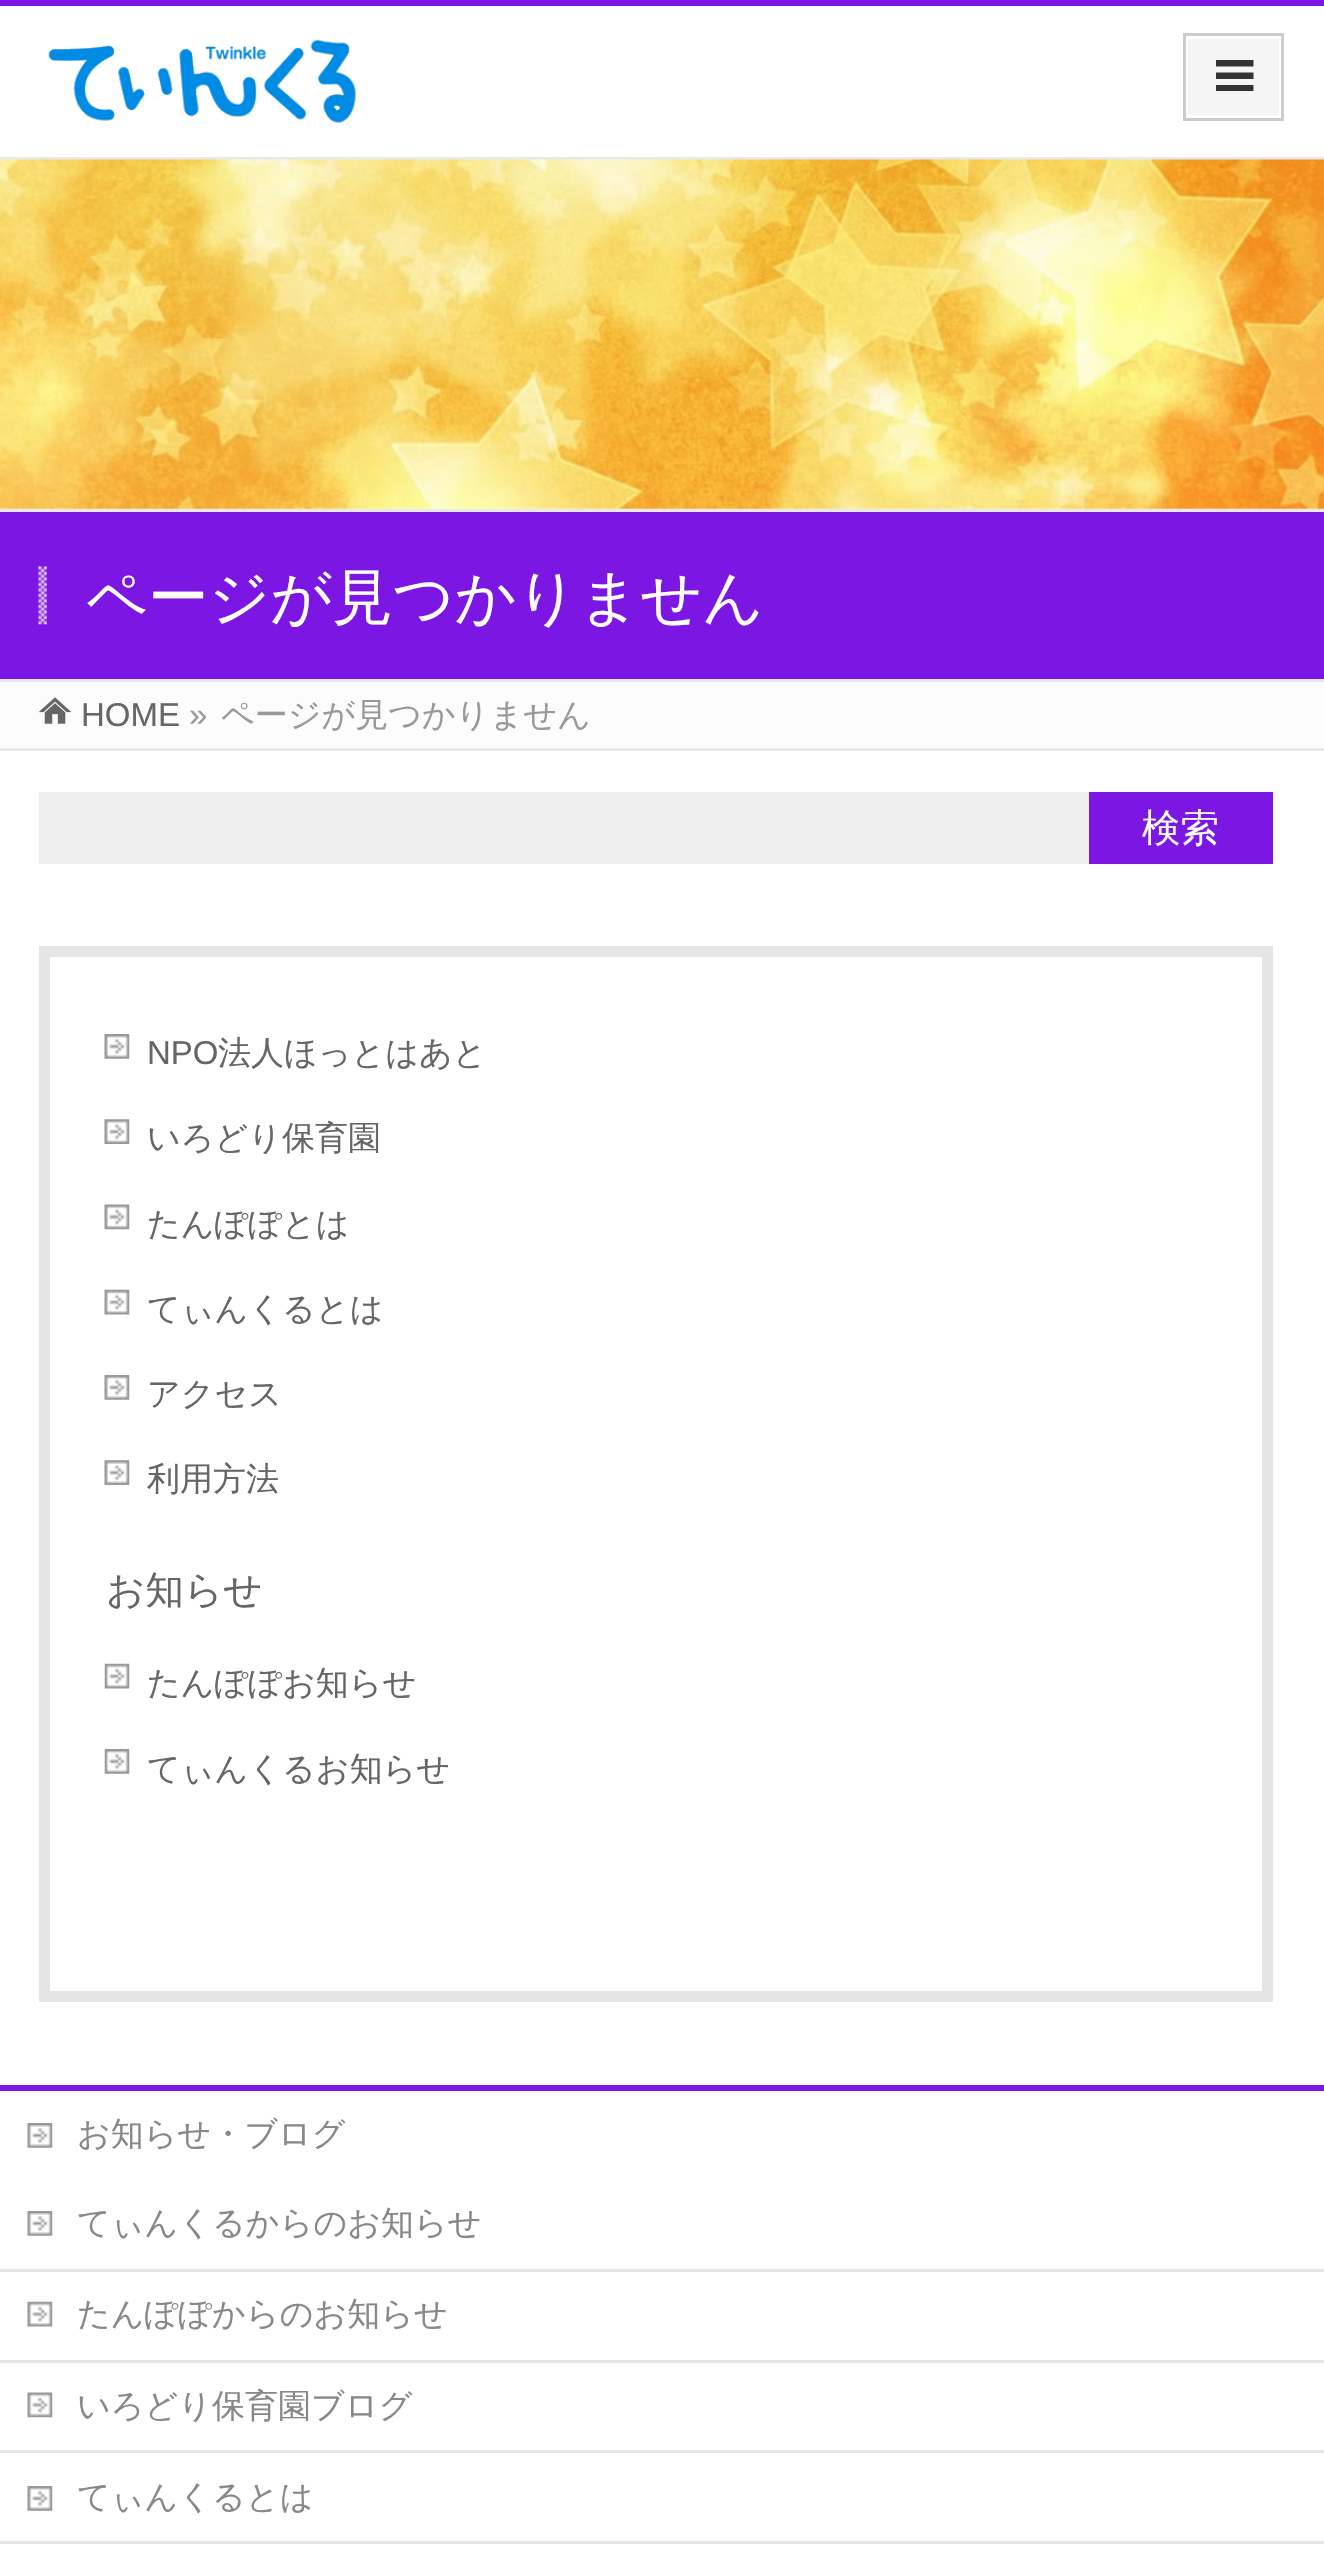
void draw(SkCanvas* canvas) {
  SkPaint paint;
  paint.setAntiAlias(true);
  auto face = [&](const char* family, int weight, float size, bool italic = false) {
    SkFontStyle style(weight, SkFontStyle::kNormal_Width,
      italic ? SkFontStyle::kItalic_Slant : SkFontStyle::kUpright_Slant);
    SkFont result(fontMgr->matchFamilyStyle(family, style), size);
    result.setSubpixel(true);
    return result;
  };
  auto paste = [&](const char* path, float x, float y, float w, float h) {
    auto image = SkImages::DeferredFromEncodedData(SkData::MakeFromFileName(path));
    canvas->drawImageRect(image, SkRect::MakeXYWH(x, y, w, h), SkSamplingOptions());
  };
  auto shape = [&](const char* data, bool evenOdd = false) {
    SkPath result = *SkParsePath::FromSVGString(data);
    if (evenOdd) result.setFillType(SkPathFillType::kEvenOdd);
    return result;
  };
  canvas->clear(0xffffffff);
  paint.setColor(0xff7c16e2);
  canvas->drawRect(SkRect::MakeXYWH(0, 0, 1324, 6), paint);
  paste("img/1.png", 48, 39, 308, 84);
  paint.setColor(0xfff5f5f5);
  canvas->drawRect(SkRect::MakeXYWH(1188, 39, 91, 76), paint);
  paint.setStroke(true);
  paint.setStrokeWidth(3);
  paint.setColor(0xffcccccc);
  canvas->drawRect(SkRect::MakeXYWH(1184.5f, 34.5f, 98, 85), paint);
  paint.setStroke(false);
  paint.setColor(0xff333333);
  canvas->drawPath(shape("M1216 60V66.5H1253.5V60ZM1216 72.5V79H1253.5V72.5ZM1216 85V91H1253.5V85Z"), paint);
  paint.setColor(0xffe9e9e9);
  canvas->drawRect(SkRect::MakeXYWH(0, 157, 1324, 3), paint);
  paste("img/2.png", 0, 159, 1324, 350);
  {
    const struct { float x, y, w, h; SkColor color; } items[] = {
      {0, 512, 1324, 167, 0xff7c16e2},
      {0, 509, 1324, 3, 0xffe9e9e9},
      {0, 679, 1324, 3, 0xffe9e9e9},
    };
    for (auto [x, y, w, h, color] : items) {
      paint.setColor(color);
      canvas->drawRect(SkRect::MakeXYWH(x, y, w, h), paint);
    }
  }
  paste("img/3.png", 38, 566, 9, 59);
  paint.setColor(0xfffcfcfc);
  canvas->drawRect(SkRect::MakeXYWH(0, 682, 1324, 66), paint);
  paste("img/4.png", 39, 697, 33, 27);
  {
    const struct { float x, y, w, h; SkColor color; } items[] = {
      {0, 748, 1324, 3, 0xffe9e9e9},
      {39, 792, 1050, 72, 0xffefefef},
      {1089, 792, 184, 72, 0xff7c16e2},
    };
    for (auto [x, y, w, h, color] : items) {
      paint.setColor(color);
      canvas->drawRect(SkRect::MakeXYWH(x, y, w, h), paint);
    }
  }
  paint.setStroke(true);
  paint.setStrokeWidth(11);
  paint.setColor(0xffe5e5e5);
  canvas->drawRect(SkRect::MakeXYWH(44.5f, 951.5f, 1223, 1045), paint);
  paste("img/5.png", 104, 1034, 26, 25);
  paste("img/6.png", 104, 1119, 26, 25);
  paste("img/7.png", 104, 1204, 26, 26);
  paste("img/8.png", 104, 1289, 26, 26);
  paste("img/5.png", 104, 1375, 26, 25);
  paste("img/6.png", 104, 1460, 26, 25);
  paste("img/9.png", 104, 1663, 26, 26);
  paste("img/10.png", 104, 1749, 26, 25);
  paint.setStroke(false);
  paint.setColor(0xff7c16e2);
  canvas->drawRect(SkRect::MakeXYWH(0, 2085, 1324, 6), paint);
  paint.setColor(0xffe5e5e5);
  canvas->drawRect(SkRect::MakeXYWH(0, 2450, 1324, 3), paint);
  paste("img/11.png", 27, 2123, 26, 25);
  canvas->drawRect(SkRect::MakeXYWH(0, 2269, 1324, 3), paint);
  paste("img/11.png", 27, 2211, 26, 25);
  canvas->drawRect(SkRect::MakeXYWH(0, 2360, 1324, 3), paint);
  paste("img/12.png", 27, 2301, 26, 26);
  paste("img/13.png", 27, 2392, 26, 26);
  canvas->drawRect(SkRect::MakeXYWH(0, 2541, 1324, 3), paint);
  paste("img/11.png", 27, 2486, 26, 25);
  auto f0 = face("WenQuanYi Zen Hei", 500, 60.5f);
  paint.setColor(0xffffffff);
  canvas->drawString("ページが見つかりません", 86, 618, f0, paint);
  auto f1 = face("Liberation Sans", 400, 33);
  paint.setColor(0xff666666);
  canvas->drawString("HOME", 81, 726, f1, paint);
  paint.setColor(0xff999999);
  canvas->drawString("»", 189, 726, f1, paint);
  auto f2 = face("WenQuanYi Zen Hei", 500, 33);
  canvas->drawString("ページが見つかりません", 221, 726, f2, paint);
  auto f3 = face("WenQuanYi Zen Hei", 500, 38.5f);
  paint.setColor(0xffffffff);
  canvas->drawString("検索", 1142, 841, f3, paint);
  paint.setColor(0xff666666);
  canvas->drawString("NPO", 147, 1064, f1, paint);
  {
    const struct { const char* s; float x, y; } items[] = {
      {"法人ほっとはあと", 218, 1064},
      {"いろどり保育園", 147, 1149},
      {"たんぽぽとは", 147, 1235},
      {"てぃんくるとは", 147, 1320},
      {"アクセス", 147, 1405},
      {"利用方法", 147, 1490},
    };
    for (auto [s, x, y] : items) {
      canvas->drawString(s, x, y, f2, paint);
    }
  }
  canvas->drawString("お知らせ", 106, 1603, f3, paint);
  canvas->drawString("たんぽぽお知らせ", 147, 1694, f2, paint);
  canvas->drawString("てぃんくるお知らせ", 147, 1780, f2, paint);
  paint.setColor(0xff888888);
  {
    const struct { const char* s; float x, y; } items[] = {
      {"お知らせ・ブログ", 77, 2145},
      {"てぃんくるからのお知らせ", 77, 2234},
      {"たんぽぽからのお知らせ", 77, 2325},
      {"いろどり保育園ブログ", 77, 2417},
      {"てぃんくるとは", 77, 2508},
    };
    for (auto [s, x, y] : items) {
      canvas->drawString(s, x, y, f2, paint);
    }
  }
}
